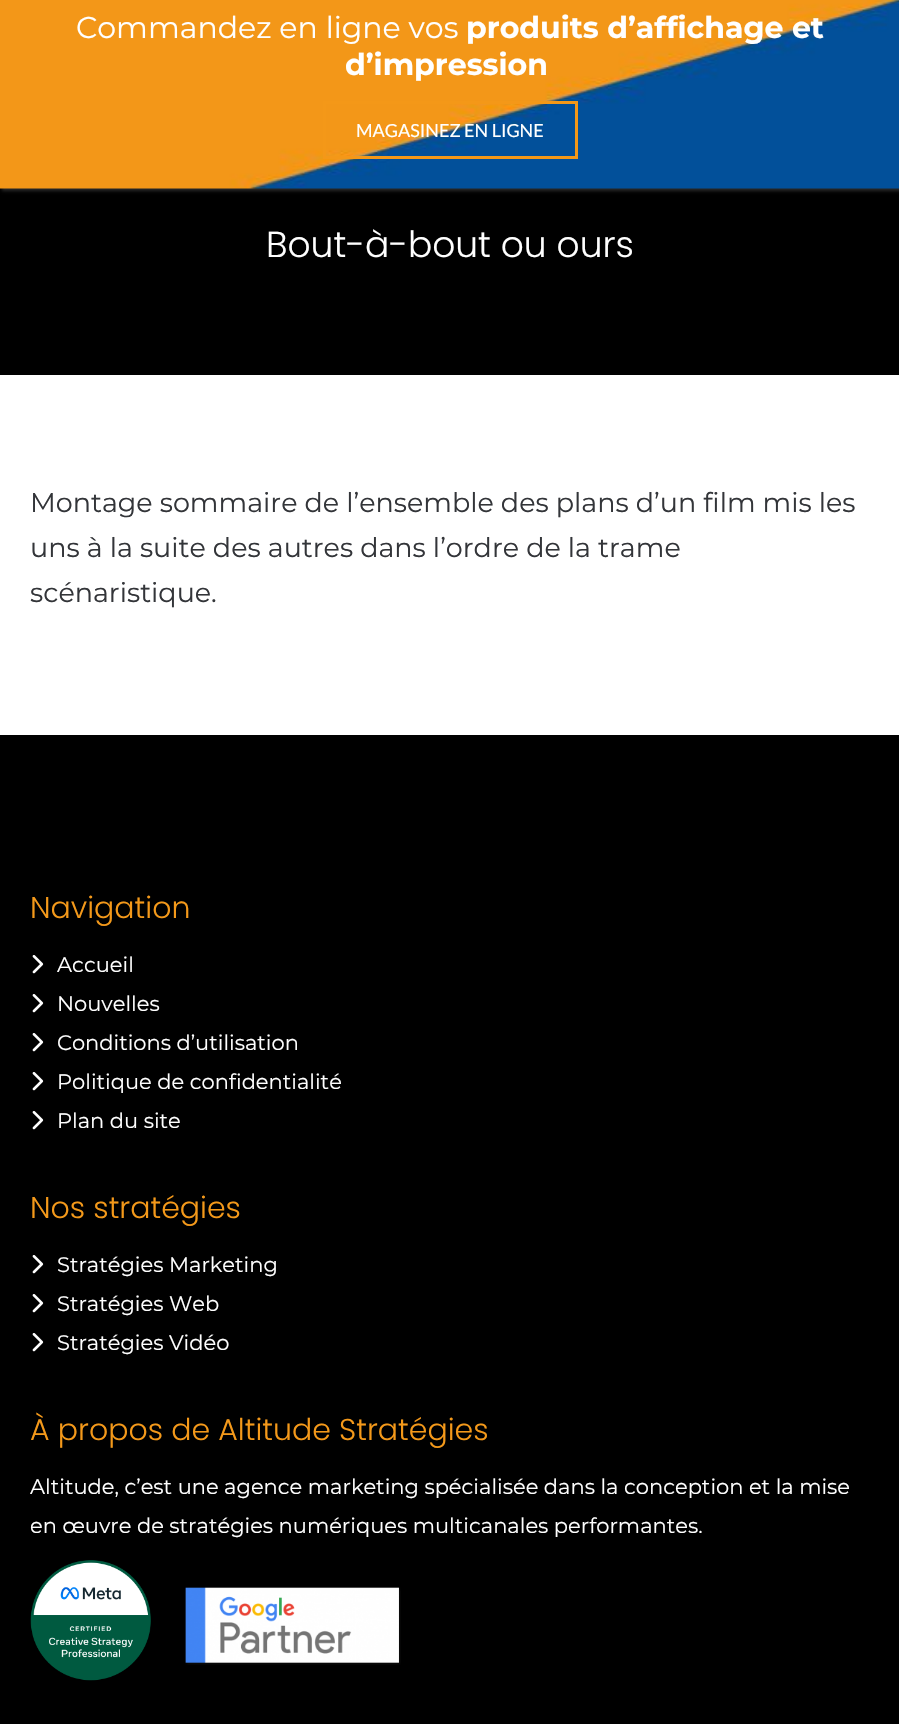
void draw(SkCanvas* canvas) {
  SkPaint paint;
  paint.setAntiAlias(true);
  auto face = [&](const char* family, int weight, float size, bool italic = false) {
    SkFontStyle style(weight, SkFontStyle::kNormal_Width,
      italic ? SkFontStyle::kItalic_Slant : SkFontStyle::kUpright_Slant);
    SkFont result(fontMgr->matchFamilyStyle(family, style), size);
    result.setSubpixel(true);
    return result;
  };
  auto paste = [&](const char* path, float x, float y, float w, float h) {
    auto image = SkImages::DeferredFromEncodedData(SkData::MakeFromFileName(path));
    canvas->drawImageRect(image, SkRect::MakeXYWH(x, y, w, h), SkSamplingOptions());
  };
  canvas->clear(0xffffffff);
  paint.setColor(0xff000000);
  canvas->drawRect(SkRect::MakeXYWH(0, 188, 899, 187), paint);
  paint.setColor(0x99424242);
  paint.setMaskFilter(SkMaskFilter::MakeBlur(kNormal_SkBlurStyle, 1.5f));
  canvas->drawRect(SkRect::MakeXYWH(2, -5, 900, 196), paint);
  paint.setMaskFilter(nullptr);
  paste("img/1.png", 0, 0, 899, 189);
  paint.setStroke(true);
  paint.setStrokeWidth(3);
  paint.setColor(0xfff49818);
  canvas->drawRect(SkRect::MakeXYWH(324.5f, 102.5f, 252, 55), paint);
  paint.setStroke(false);
  paint.setColor(0xff000000);
  canvas->drawRect(SkRect::MakeXYWH(0, 735, 899, 989), paint);
  paste("img/2.png", 32, 955, 12, 19);
  paste("img/2.png", 32, 994, 12, 19);
  paste("img/2.png", 32, 1033, 12, 19);
  paste("img/2.png", 32, 1072, 12, 19);
  paste("img/2.png", 32, 1111, 12, 19);
  paste("img/2.png", 32, 1255, 12, 19);
  paste("img/2.png", 32, 1294, 12, 19);
  paste("img/2.png", 32, 1333, 12, 19);
  paste("img/3.png", 30, 1560, 121, 121);
  paste("img/4.png", 185, 1587, 216, 78);
  auto f0 = face("Montserrat", 100, 30);
  paint.setColor(0xffffffff);
  canvas->drawString("Commandez en ligne vos", 76, 38, f0, paint);
  auto f1 = face("Montserrat", 700, 30);
  canvas->drawString("produits d’affichage et", 466, 38, f1, paint);
  canvas->drawString("d’impression", 345, 75, f1, paint);
  auto f2 = face("Lato", 400, 18);
  canvas->drawString("MAGASINEZ EN LIGNE", 356, 137, f2, paint);
  auto f3 = face("Poppins", 300, 36);
  canvas->drawString("Bout-à-bout ou ours", 266, 257, f3, paint);
  auto f4 = face("Montserrat", 100, 27);
  paint.setColor(0xff333539);
  {
    const struct { const char* s; float x, y; } items[] = {
      {"Montage sommaire de l’ensemble des plans d’un film mis les", 30, 512},
      {"uns à la suite des autres dans l’ordre de la trame", 30, 557},
      {"scénaristique.", 30, 602},
    };
    for (auto [s, x, y] : items) {
      canvas->drawString(s, x, y, f4, paint);
    }
  }
  auto f5 = face("Poppins", 300, 30);
  paint.setColor(0xfff4991a);
  canvas->drawString("Navigation", 30, 918, f5, paint);
  auto f6 = face("Montserrat", 100, 21);
  paint.setColor(0xffffffff);
  {
    const struct { const char* s; float x, y; } items[] = {
      {"Accueil", 57, 972},
      {"Nouvelles", 57, 1011},
      {"Conditions d’utilisation", 57, 1050},
      {"Politique de confidentialité", 57, 1089},
      {"Plan du site", 57, 1128},
    };
    for (auto [s, x, y] : items) {
      canvas->drawString(s, x, y, f6, paint);
    }
  }
  paint.setColor(0xfff4991a);
  canvas->drawString("Nos stratégies", 30, 1218, f5, paint);
  paint.setColor(0xffffffff);
  {
    const struct { const char* s; float x, y; } items[] = {
      {"Stratégies Marketing", 57, 1272},
      {"Stratégies Web", 57, 1311},
      {"Stratégies Vidéo", 57, 1350},
    };
    for (auto [s, x, y] : items) {
      canvas->drawString(s, x, y, f6, paint);
    }
  }
  paint.setColor(0xfff4991a);
  canvas->drawString("À propos de Altitude Stratégies", 30, 1440, f5, paint);
  paint.setColor(0xffffffff);
  canvas->drawString("Altitude, c’est une agence marketing spécialisée dans la conception et la mise", 30, 1494, f6, paint);
  canvas->drawString("en œuvre de stratégies numériques multicanales performantes.", 30, 1533, f6, paint);
}
